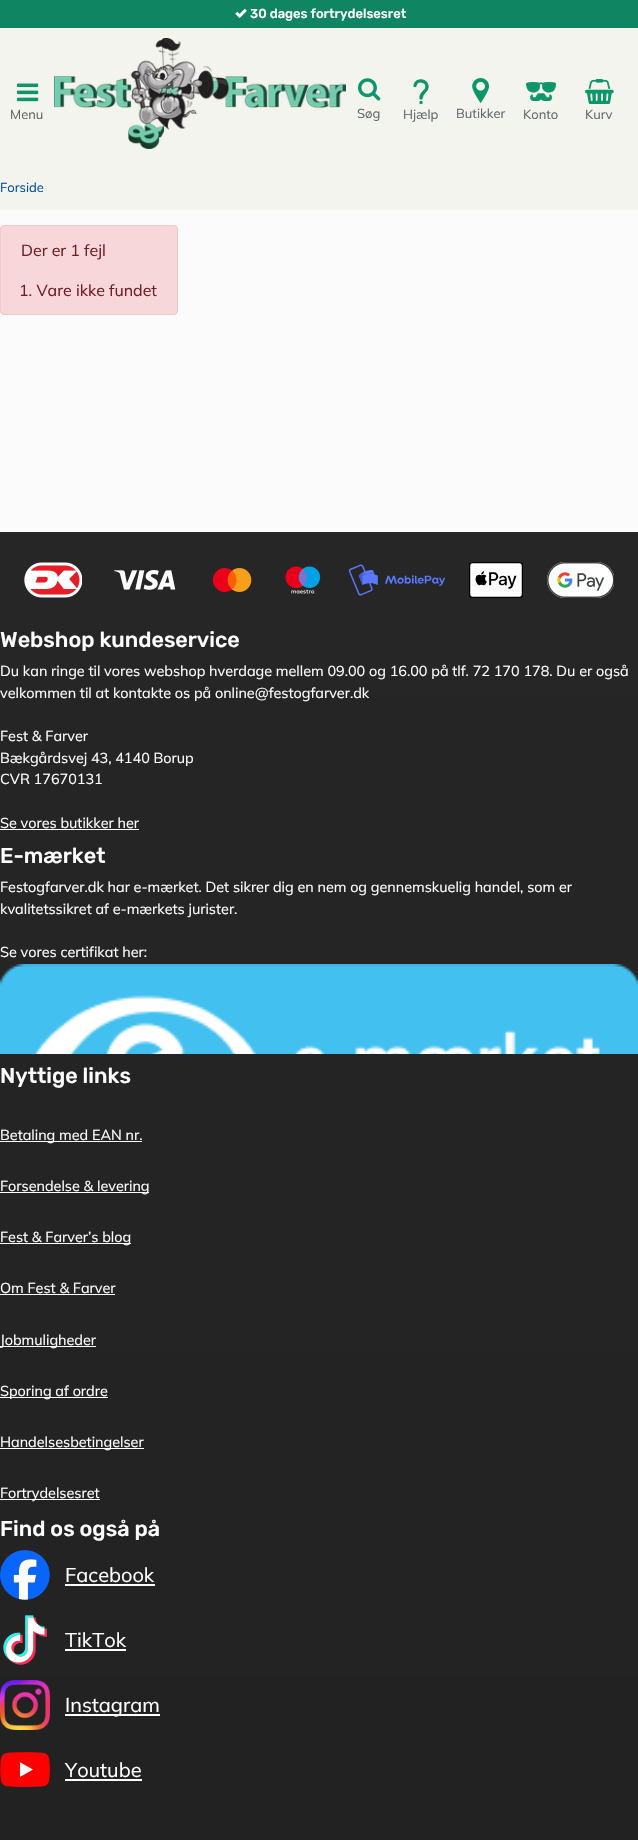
void draw(SkCanvas* canvas) {
  SkPaint paint;
  paint.setAntiAlias(true);
  auto face = [&](const char* family, int weight, float size, bool italic = false) {
    SkFontStyle style(weight, SkFontStyle::kNormal_Width,
      italic ? SkFontStyle::kItalic_Slant : SkFontStyle::kUpright_Slant);
    SkFont result(fontMgr->matchFamilyStyle(family, style), size);
    result.setSubpixel(true);
    return result;
  };
  auto paste = [&](const char* path, float x, float y, float w, float h) {
    auto image = SkImages::DeferredFromEncodedData(SkData::MakeFromFileName(path));
    canvas->drawImageRect(image, SkRect::MakeXYWH(x, y, w, h), SkSamplingOptions());
  };
  auto shape = [&](const char* data, bool evenOdd = false) {
    SkPath result = *SkParsePath::FromSVGString(data);
    if (evenOdd) result.setFillType(SkPathFillType::kEvenOdd);
    return result;
  };
  canvas->clear(0xfffbfbfb);
  paint.setColor(0xff0f8562);
  canvas->drawRect(SkRect::MakeXYWH(0, 0, 638, 28), paint);
  paste("img/1.png", 235, 8, 12, 10);
  paint.setColor(0xfff4f4ee);
  canvas->drawRect(SkRect::MakeXYWH(0, 28, 638, 182), paint);
  paste("img/2.png", 17, 83, 22, 19);
  paste("img/3.png", 54, 38, 292, 111);
  paste("img/4.png", 358, 78, 23, 23);
  paint.setStroke(true);
  paint.setStrokeWidth(3.4f);
  paint.setStrokeCap(SkPaint::kRound_Cap);
  paint.setStrokeJoin(SkPaint::kRound_Join);
  paint.setColor(0xff0e956a);
  canvas->drawPath(shape("M421 102.5H421M421 98C421 91.5 427 92 427 87C427.5 80 416.5 78.5 415 85.5"), paint);
  paste("img/5.png", 472, 78, 18, 25);
  paste("img/6.png", 526, 82, 30, 19);
  paste("img/7.png", 585, 79, 29, 25);
  paint.setStroke(false);
  paint.setColor(0xfff8d7da);
  canvas->drawRoundRect(SkRect::MakeXYWH(0.5f, 225.5f, 177, 89), 3.5f, 3.5f, paint);
  paint.setStroke(true);
  paint.setStrokeWidth(1);
  paint.setStrokeCap(SkPaint::kButt_Cap);
  paint.setStrokeJoin(SkPaint::kMiter_Join);
  paint.setColor(0xfff5c6cb);
  canvas->drawRoundRect(SkRect::MakeXYWH(0.5f, 225.5f, 177, 89), 3.5f, 3.5f, paint);
  paint.setStroke(false);
  {
    const SkColor colors[] = {0xff262626, 0xff222222};
    const float stops[] = {0, 1};
    const SkPoint ends[] = {{319, 532}, {319, 1840}};
    paint.setShader(SkGradientShader::MakeLinear(ends, colors, stops, 2, SkTileMode::kClamp));
    paint.setAlpha(255);
  }
  canvas->drawRect(SkRect::MakeXYWH(0, 532, 638, 1308), paint);
  paste("img/8.png", 24, 562, 58, 36);
  paste("img/9.png", 114, 570, 62, 20);
  paste("img/10.png", 212, 568, 40, 24);
  paste("img/11.png", 285, 566, 36, 28);
  paste("img/12.png", 348, 564, 97, 32);
  paste("img/13.png", 469, 562, 54, 36);
  paste("img/14.png", 547, 562, 67, 36);
  paint.setShader(nullptr);
  paint.setColor(0xffffffff);
  canvas->drawRect(SkRect::MakeXYWH(0, 829, 139, 1), paint);
  paste("img/15.png", 0, 964, 638, 90);
  {
    const struct { float x, y, w, h; SkColor color; } items[] = {
      {0, 1141, 142, 1, 0xffffffff},
      {0, 1192, 149, 1, 0xffffffff},
      {0, 1243, 131, 1, 0xffffffff},
      {0, 1294, 115, 1, 0xffffffff},
      {0, 1346, 96, 1, 0xffffffff},
      {0, 1397, 108, 1, 0xffffffff},
      {0, 1448, 144, 1, 0xffffffff},
      {0, 1499, 100, 1, 0xffffffff},
    };
    for (auto [x, y, w, h, color] : items) {
      paint.setColor(color);
      canvas->drawRect(SkRect::MakeXYWH(x, y, w, h), paint);
    }
  }
  paste("img/16.png", 0, 1550, 50, 50);
  canvas->drawRect(SkRect::MakeXYWH(65, 1584, 90, 2), paint);
  paste("img/17.png", 3, 1615, 44, 50);
  canvas->drawRect(SkRect::MakeXYWH(65, 1649, 61, 2), paint);
  paste("img/18.png", 0, 1680, 50, 50);
  canvas->drawRect(SkRect::MakeXYWH(65, 1714, 95, 2), paint);
  paste("img/19.png", 0, 1752, 50, 35);
  canvas->drawRect(SkRect::MakeXYWH(65, 1779, 77, 2), paint);
  auto f0 = face("Rubik", 300, 13);
  canvas->drawString("30 dages fortrydelsesret", 250, 18, f0, paint);
  auto f1 = face("Mulish", 200, 13);
  paint.setColor(0xff636363);
  canvas->drawString("Menu", 10, 119, f1, paint);
  paint.setColor(0xff5e686e);
  {
    const struct { const char* s; float x, y; } items[] = {
      {"Søg", 357, 118},
      {"Hjælp", 403, 119},
      {"Butikker", 456, 118},
      {"Konto", 523, 119},
      {"Kurv", 585, 119},
    };
    for (auto [s, x, y] : items) {
      canvas->drawString(s, x, y, f1, paint);
    }
  }
  paint.setColor(0xff0050a3);
  canvas->drawString("Forside", 0, 192, f1, paint);
  auto f2 = face("Mulish", 200, 16);
  paint.setColor(0xff721c24);
  canvas->drawString("Der er 1 fejl", 21, 256, f2, paint);
  canvas->drawString("1. Vare ikke fundet", 19, 296, f2, paint);
  auto f3 = face("Rubik", 300, 21.6f);
  paint.setColor(0xffffffff);
  canvas->drawString("Webshop kundeservice", 0, 647, f3, paint);
  auto f4 = face("Mulish", 200, 14.4f);
  {
    const struct { const char* s; float x, y; } items[] = {
      {"Du kan ringe til vores webshop hverdage mellem 09.00 og 16.00 på tlf. 72 170 178. Du er også", 0, 676},
      {"velkommen til at kontakte os på online@festogfarver.dk", 0, 698},
      {"Fest & Farver", 0, 741},
      {"Bækgårdsvej 43, 4140 Borup", 0, 763},
      {"CVR 17670131", 0, 784},
      {"Se vores butikker her", 0, 828},
    };
    for (auto [s, x, y] : items) {
      canvas->drawString(s, x, y, f4, paint);
    }
  }
  canvas->drawString("E-mærket", 0, 863, f3, paint);
  {
    const struct { const char* s; float x, y; } items[] = {
      {"Festogfarver.dk har e-mærket. Det sikrer dig en nem og gennemskuelig handel, som er", 0, 892},
      {"kvalitetssikret af e-mærkets jurister.", 0, 914},
      {"Se vores certifikat her:", 0, 957},
    };
    for (auto [s, x, y] : items) {
      canvas->drawString(s, x, y, f4, paint);
    }
  }
  canvas->drawString("Nyttige links", 0, 1083, f3, paint);
  {
    const struct { const char* s; float x, y; } items[] = {
      {"Betaling med EAN nr.", 0, 1140},
      {"Forsendelse & levering", 0, 1191},
      {"Fest & Farver’s blog", 0, 1242},
      {"Om Fest & Farver", 0, 1293},
      {"Jobmuligheder", 0, 1345},
      {"Sporing af ordre", 0, 1396},
      {"Handelsesbetingelser", 0, 1447},
      {"Fortrydelsesret", 0, 1498},
    };
    for (auto [s, x, y] : items) {
      canvas->drawString(s, x, y, f4, paint);
    }
  }
  canvas->drawString("Find os også på", 0, 1536, f3, paint);
  auto f5 = face("Mulish", 200, 20);
  {
    const struct { const char* s; float x, y; } items[] = {
      {"Facebook", 65, 1582},
      {"TikTok", 65, 1647},
      {"Instagram", 65, 1712},
      {"Youtube", 65, 1777},
    };
    for (auto [s, x, y] : items) {
      canvas->drawString(s, x, y, f5, paint);
    }
  }
}
